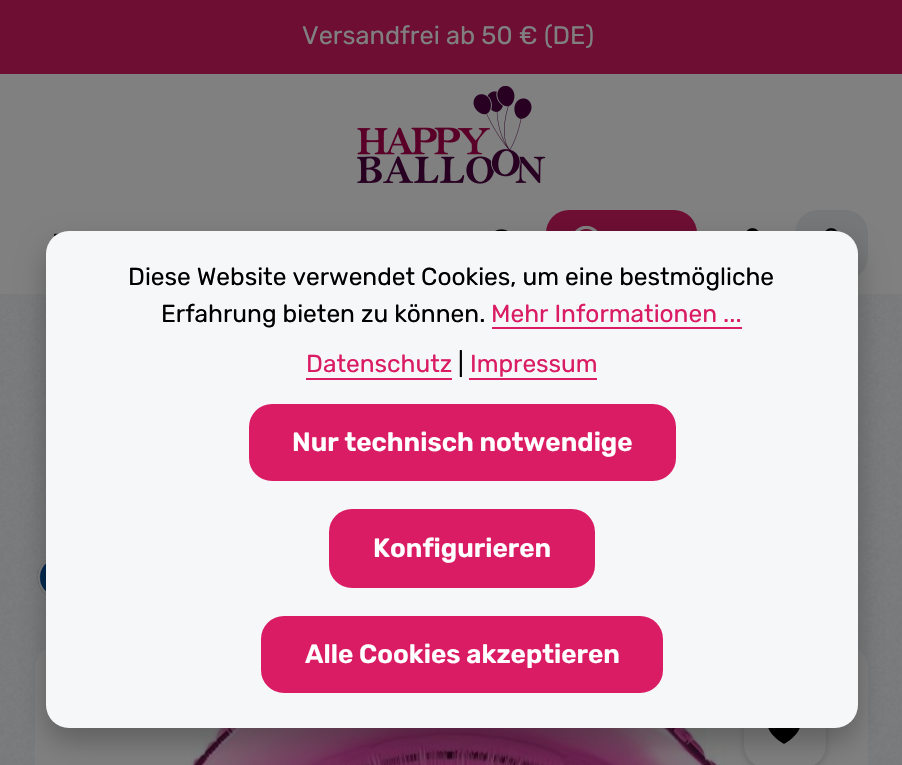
void draw(SkCanvas* canvas) {
  SkPaint paint;
  paint.setAntiAlias(true);
  auto face = [&](const char* family, int weight, float size, bool italic = false) {
    SkFontStyle style(weight, SkFontStyle::kNormal_Width,
      italic ? SkFontStyle::kItalic_Slant : SkFontStyle::kUpright_Slant);
    SkFont result(fontMgr->matchFamilyStyle(family, style), size);
    result.setSubpixel(true);
    return result;
  };
  auto paste = [&](const char* path, float x, float y, float w, float h) {
    auto image = SkImages::DeferredFromEncodedData(SkData::MakeFromFileName(path));
    canvas->drawImageRect(image, SkRect::MakeXYWH(x, y, w, h), SkSamplingOptions());
  };
  auto shape = [&](const char* data, bool evenOdd = false) {
    SkPath result = *SkParsePath::FromSVGString(data);
    if (evenOdd) result.setFillType(SkPathFillType::kEvenOdd);
    return result;
  };
  canvas->clear(0xff7b7c7d);
  paste("img/1.png", 0, 294, 902, 471);
  paint.setColor(0xff6d0e32);
  canvas->drawRect(SkRect::MakeXYWH(0, 0, 902, 74), paint);
  paint.setColor(0xff808080);
  canvas->drawRect(SkRect::MakeXYWH(0, 74, 902, 220), paint);
  paste("img/2.png", 357, 86, 189, 98);
  paste("img/3.png", 54, 233, 6, 4);
  paste("img/4.png", 495, 229, 13, 2);
  paint.setColor(0xff6d0e32);
  canvas->drawRoundRect(SkRect::MakeXYWH(546, 210, 151, 70), 23, 23, paint);
  paste("img/5.png", 575, 226, 23, 5);
  paste("img/6.png", 746, 228, 13, 3);
  paint.setColor(0xff767778);
  canvas->drawRoundRect(SkRect::MakeXYWH(795, 210, 73, 70), 23, 23, paint);
  paste("img/7.png", 825, 228, 13, 4);
  paste("img/8.png", 37, 560, 9, 36);
  paste("img/9.png", 35, 648, 833, 117);
  canvas->save();
  canvas->clipPath(shape("M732 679H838V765H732ZM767 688H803C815.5 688 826 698.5 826 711V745C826 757.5 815.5 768 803 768H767C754.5 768 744 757.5 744 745V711C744 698.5 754.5 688 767 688Z", true), true);
  paint.setColor(0x26000000);
  paint.setMaskFilter(SkMaskFilter::MakeBlur(kNormal_SkBlurStyle, 3.5f));
  canvas->drawRoundRect(SkRect::MakeXYWH(744, 691, 82, 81), 23, 23, paint);
  paint.setMaskFilter(nullptr);
  canvas->restore();
  paste("img/10.png", 768, 728, 32, 16);
  paint.setColor(0x40000000);
  paint.setMaskFilter(SkMaskFilter::MakeBlur(kNormal_SkBlurStyle, 14));
  canvas->drawRoundRect(SkRect::MakeXYWH(46, 245, 812, 497), 23, 23, paint);
  paint.setMaskFilter(nullptr);
  paint.setColor(0xfff6f7f9);
  canvas->drawRoundRect(SkRect::MakeXYWH(46, 231, 812, 497), 23, 23, paint);
  {
    const struct { float x, y, w, h; SkColor color; } items[] = {
      {492, 327, 250, 2, 0xffda1c64},
      {306, 378, 146, 2, 0xffda1c64},
      {469, 378, 128, 2, 0xffda1c64},
    };
    for (auto [x, y, w, h, color] : items) {
      paint.setColor(color);
      canvas->drawRect(SkRect::MakeXYWH(x, y, w, h), paint);
    }
  }
  canvas->drawRoundRect(SkRect::MakeXYWH(250, 405, 425, 75), 22, 22, paint);
  paint.setStroke(true);
  paint.setStrokeWidth(2);
  canvas->drawRoundRect(SkRect::MakeXYWH(250, 405, 425, 75), 22, 22, paint);
  paint.setStroke(false);
  canvas->drawRoundRect(SkRect::MakeXYWH(330, 510, 264, 77), 22, 22, paint);
  paint.setStroke(true);
  canvas->drawRoundRect(SkRect::MakeXYWH(330, 510, 264, 77), 22, 22, paint);
  paint.setStroke(false);
  canvas->drawRoundRect(SkRect::MakeXYWH(262, 617, 400, 75), 22, 22, paint);
  paint.setStroke(true);
  canvas->drawRoundRect(SkRect::MakeXYWH(262, 617, 400, 75), 22, 22, paint);
  auto f0 = face("Rubik", 400, 25.4f);
  paint.setStroke(false);
  paint.setColor(0xff808080);
  canvas->drawString("Versandfrei ab 50 € (DE)", 302, 44, f0, paint);
  auto f1 = face("Rubik", 400, 24.5f);
  paint.setColor(0xff000000);
  canvas->drawString("Diese Website verwendet Cookies, um eine bestmögliche", 128, 285, f1, paint);
  canvas->drawString("Erfahrung bieten zu können.", 161, 322, f1, paint);
  paint.setColor(0xffda1c64);
  canvas->drawString("Mehr Informationen ...", 491, 322, f1, paint);
  canvas->drawString("Datenschutz", 306, 372, f1, paint);
  paint.setColor(0xff000000);
  canvas->drawString("|", 458, 372, f1, paint);
  paint.setColor(0xffda1c64);
  canvas->drawString("Impressum", 470, 372, f1, paint);
  auto f2 = face("Rubik", 600, 26.25f);
  paint.setColor(0xffffffff);
  {
    const struct { const char* s; float x, y; } items[] = {
      {"Nur technisch notwendige", 292, 451},
      {"Konfigurieren", 373, 557},
      {"Alle Cookies akzeptieren", 305, 663},
    };
    for (auto [s, x, y] : items) {
      canvas->drawString(s, x, y, f2, paint);
    }
  }
}
